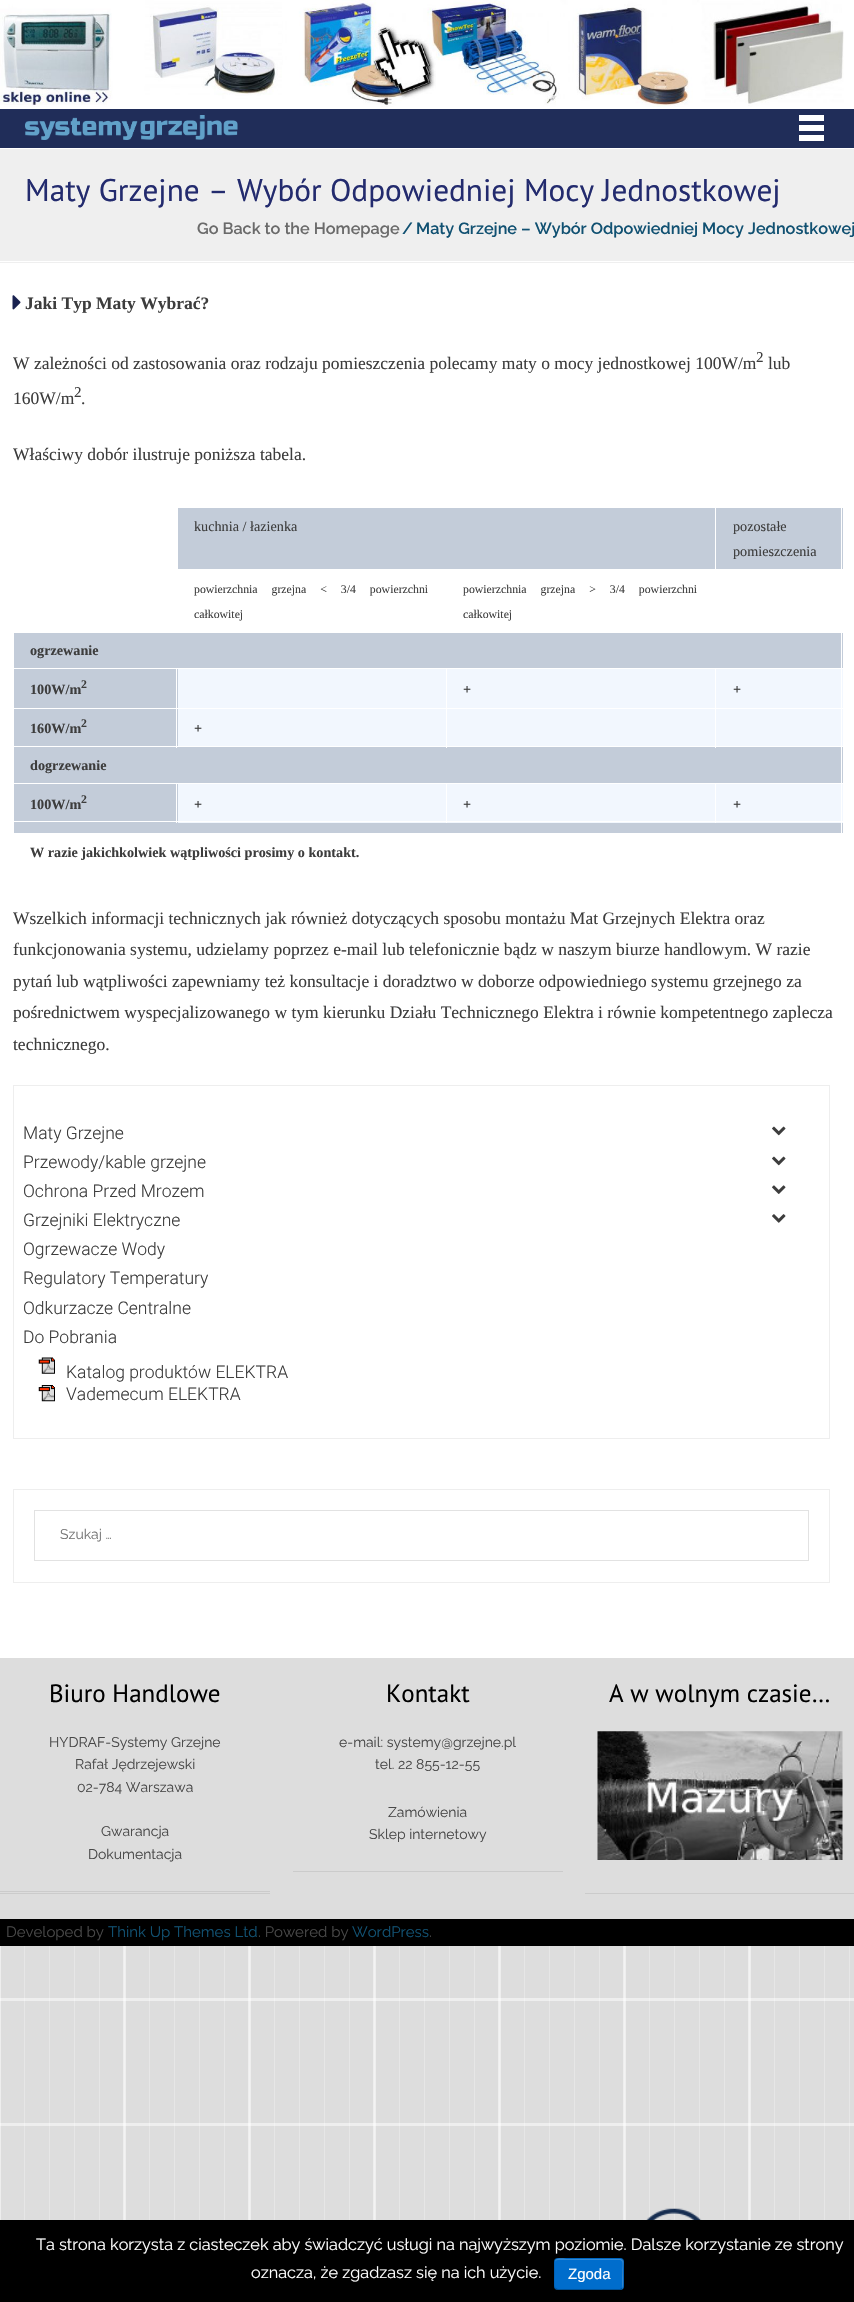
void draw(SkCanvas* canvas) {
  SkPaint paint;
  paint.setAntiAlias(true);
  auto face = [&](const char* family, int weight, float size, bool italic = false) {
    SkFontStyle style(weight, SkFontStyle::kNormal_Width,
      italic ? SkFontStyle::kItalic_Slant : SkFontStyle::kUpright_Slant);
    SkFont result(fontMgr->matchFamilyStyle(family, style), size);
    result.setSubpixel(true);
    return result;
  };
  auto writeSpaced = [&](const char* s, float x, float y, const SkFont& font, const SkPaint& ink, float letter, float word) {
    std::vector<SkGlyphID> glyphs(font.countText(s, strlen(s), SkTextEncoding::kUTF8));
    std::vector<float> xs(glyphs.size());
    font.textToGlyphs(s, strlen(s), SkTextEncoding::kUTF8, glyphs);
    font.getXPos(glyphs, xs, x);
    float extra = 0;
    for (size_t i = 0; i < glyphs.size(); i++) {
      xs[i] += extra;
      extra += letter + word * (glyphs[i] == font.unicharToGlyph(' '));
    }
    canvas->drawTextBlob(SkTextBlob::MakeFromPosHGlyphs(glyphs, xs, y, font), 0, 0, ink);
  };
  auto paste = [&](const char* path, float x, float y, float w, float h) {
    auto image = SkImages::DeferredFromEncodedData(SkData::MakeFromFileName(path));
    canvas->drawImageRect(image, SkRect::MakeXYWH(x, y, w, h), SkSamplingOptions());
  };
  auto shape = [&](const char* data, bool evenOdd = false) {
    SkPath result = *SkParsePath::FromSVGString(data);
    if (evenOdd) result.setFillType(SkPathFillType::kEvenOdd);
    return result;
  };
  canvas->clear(0xffdddddd);
  paste("img/1.png", 24, 1946, 826, 274);
  {
    const struct { float x, y, w, h; SkColor color; } items[] = {
      {0, 1946, 1, 274, 0xffeeeeee},
      {123, 1946, 3, 274, 0x80ffffff},
      {248, 1946, 3, 274, 0x80ffffff},
      {373, 1946, 3, 274, 0x80ffffff},
      {498, 1946, 3, 274, 0x80ffffff},
      {623, 1946, 3, 274, 0x80ffffff},
      {748, 1946, 3, 274, 0x80ffffff},
      {0, 1998, 854, 3, 0x80ffffff},
      {0, 2123, 854, 3, 0x80ffffff},
      {0, 0, 854, 1658, 0xffffffff},
    };
    for (auto [x, y, w, h, color] : items) {
      paint.setColor(color);
      canvas->drawRect(SkRect::MakeXYWH(x, y, w, h), paint);
    }
  }
  paste("img/2.png", 0, 0, 844, 107);
  paint.setColor(0xff202d59);
  canvas->drawRect(SkRect::MakeXYWH(0, 109, 854, 39), paint);
  paste("img/3.png", 25, 115, 213, 25);
  {
    const struct { float x, y, w, h; SkColor color; } items[] = {
      {799, 115, 25, 6, 0xffffffff},
      {799, 125, 25, 6, 0xffffffff},
      {799, 135, 25, 6, 0xffffffff},
      {0, 149, 854, 114, 0xffefefef},
      {0, 261, 854, 1, 0xffffffff},
    };
    for (auto [x, y, w, h, color] : items) {
      paint.setColor(color);
      canvas->drawRect(SkRect::MakeXYWH(x, y, w, h), paint);
    }
  }
  paste("img/4.png", 12, 295, 9, 15);
  {
    const struct { float x, y, w, h; SkColor color; } items[] = {
      {716, 508, 127, 61, 0xffc3ccd9},
      {14, 633, 829, 35, 0xffc3ccd9},
      {716, 669, 127, 39, 0xfff2f7fe},
      {716, 709, 127, 37, 0xfff2f7fe},
      {14, 747, 829, 36, 0xffc3ccd9},
      {716, 784, 127, 39, 0xfff2f7fe},
      {14, 823, 829, 10, 0xffc3ccd9},
      {841, 508, 1, 325, 0xffffffff},
      {178, 508, 537, 61, 0xffc3ccd9},
      {14, 669, 164, 39, 0xffc3ccd9},
      {178, 669, 268, 39, 0xfff2f7fe},
      {447, 669, 268, 39, 0xfff2f7fe},
      {14, 709, 164, 37, 0xffc3ccd9},
      {178, 709, 268, 37, 0xfff2f7fe},
      {176, 668, 1, 80, 0xffffffff},
      {447, 709, 268, 37, 0xfff2f7fe},
      {446, 747, 1, 1, 0xffffffff},
      {715, 747, 1, 1, 0xffffffff},
      {14, 784, 164, 39, 0xffc3ccd9},
      {178, 784, 268, 39, 0xfff2f7fe},
      {447, 784, 268, 39, 0xfff2f7fe},
      {13, 821, 830, 1, 0xffffffff},
      {176, 783, 1, 40, 0xffffffff},
    };
    for (auto [x, y, w, h, color] : items) {
      paint.setColor(color);
      canvas->drawRect(SkRect::MakeXYWH(x, y, w, h), paint);
    }
  }
  paint.setStroke(true);
  paint.setStrokeWidth(1);
  paint.setColor(0xffeeeeee);
  canvas->drawRect(SkRect::MakeXYWH(13.5f, 1085.5f, 816, 353), paint);
  paste("img/5.png", 772, 1126, 14, 10);
  paste("img/5.png", 772, 1156, 14, 10);
  paste("img/6.png", 772, 1185, 14, 9);
  paste("img/7.png", 772, 1214, 14, 9);
  paste("img/8.png", 38, 1357, 17, 17);
  paste("img/9.png", 38, 1385, 17, 17);
  paste("img/10.png", 646, 2208, 56, 12);
  canvas->drawRect(SkRect::MakeXYWH(13.5f, 1489.5f, 816, 93), paint);
  paint.setColor(0xffe2e2e2);
  canvas->drawRect(SkRect::MakeXYWH(34.5f, 1510.5f, 774, 50), paint);
  paint.setStroke(false);
  {
    const struct { float x, y, w, h; SkColor color; } items[] = {
      {0, 1891, 270, 1, 0xffcbcbcb},
      {0, 1893, 270, 1, 0xffcbcbcb},
      {293, 1871, 270, 1, 0xffcbcbcb},
      {585, 1893, 269, 1, 0xffcbcbcb},
    };
    for (auto [x, y, w, h, color] : items) {
      paint.setColor(color);
      canvas->drawRect(SkRect::MakeXYWH(x, y, w, h), paint);
    }
  }
  paste("img/11.png", 597, 1731, 246, 129);
  paint.setColor(0xff000000);
  canvas->drawRect(SkRect::MakeXYWH(0, 1919, 854, 27), paint);
  canvas->drawRect(SkRect::MakeXYWH(0, 2220, 854, 82), paint);
  paint.setColor(0xff006dcc);
  canvas->drawRoundRect(SkRect::MakeXYWH(554, 2258, 70, 32), 4, 4, paint);
  paint.setColor(0xff338ad6);
  canvas->drawPath(shape("M558 2260H620C624 2260 622 2269 622 2271V2289C624 2287 623 2277 623 2274C623 2257 627 2259 610 2259H568C566 2259 555 2256 555 2262C555 2261 556 2260 558 2260Z"), paint);
  paint.setStroke(true);
  paint.setStrokeWidth(1.2f);
  paint.setColor(0x40000000);
  canvas->drawPath(shape("M622 2288.5L620 2289.5H557.5L555.5 2288.5"), paint);
  paint.setColor(0x1a000000);
  canvas->drawPath(shape("M555.5 2288.5C553 2286.5 554.5 2276.5 554.5 2274C554.5 2256.5 551 2258 568 2258H609.5C626.5 2258 623 2256.5 623 2274C623 2276.5 624.5 2286.5 622 2288.5"), paint);
  auto f0 = face("PT Sans", 400, 31.25f);
  paint.setStroke(false);
  paint.setColor(0xff232b6e);
  canvas->drawString("Maty Grzejne – Wybór Odpowiedniej Mocy Jednostkowej", 25, 201, f0, paint);
  auto f1 = face("Raleway", 600, 16.25f);
  paint.setColor(0xff6a6a6a);
  canvas->drawString("Go Back to the Homepage", 197, 234, f1, paint);
  paint.setColor(0xff115172);
  canvas->drawString("/", 402, 234, f1, paint);
  canvas->drawString("Maty Grzejne – Wybór Odpowiedniej Mocy Jednostkowej", 416, 234, f1, paint);
  auto f2 = face("Liberation Serif", 700, 17.5f);
  paint.setColor(0xff3d3d3d);
  canvas->drawString("Jaki Typ Maty Wybrać?", 25, 309, f2, paint);
  auto f3 = face("Liberation Serif", 400, 17.5f);
  canvas->drawString("W zależności od zastosowania oraz rodzaju pomieszczenia polecamy maty o mocy jednostkowej 100W/m", 13, 369, f3, paint);
  auto f4 = face("Liberation Serif", 400, 15);
  canvas->drawString("2", 756, 362, f4, paint);
  canvas->drawString("lub", 768, 369, f3, paint);
  canvas->drawString("160W/m", 13, 404, f3, paint);
  canvas->drawString("2", 74, 397, f4, paint);
  canvas->drawString(".", 81, 404, f3, paint);
  canvas->drawString("Właściwy dobór ilustruje poniższa tabela.", 13, 460, f3, paint);
  auto f5 = face("Liberation Serif", 400, 14.2f);
  {
    const struct { const char* s; float x, y; } items[] = {
      {"kuchnia / łazienka", 194, 531},
      {"pozostałe", 733, 531},
      {"pomieszczenia", 733, 556},
    };
    for (auto [s, x, y] : items) {
      canvas->drawString(s, x, y, f5, paint);
    }
  }
  auto f6 = face("Liberation Serif", 400, 11.8f);
  writeSpaced("powierzchnia grzejna < 3/4 powierzchni", 194, 593, f6, paint, 0, 11);
  canvas->drawString("całkowitej", 194, 618, f6, paint);
  writeSpaced("powierzchnia grzejna > 3/4 powierzchni", 463, 593, f6, paint, 0, 11);
  canvas->drawString("całkowitej", 463, 618, f6, paint);
  auto f7 = face("Liberation Serif", 700, 14.2f);
  canvas->drawString("ogrzewanie", 30, 655, f7, paint);
  canvas->drawString("100W/m", 30, 694, f7, paint);
  auto f8 = face("Liberation Serif", 700, 11.8f);
  canvas->drawString("2", 81, 688, f8, paint);
  {
    const struct { const char* s; float x, y; } items[] = {
      {"+", 463, 694},
      {"+", 733, 694},
      {"160W/m", 30, 733},
    };
    for (auto [s, x, y] : items) {
      canvas->drawString(s, x, y, f7, paint);
    }
  }
  canvas->drawString("2", 81, 727, f8, paint);
  {
    const struct { const char* s; float x, y; } items[] = {
      {"+", 194, 733},
      {"dogrzewanie", 30, 770},
      {"100W/m", 30, 809},
    };
    for (auto [s, x, y] : items) {
      canvas->drawString(s, x, y, f7, paint);
    }
  }
  canvas->drawString("2", 81, 803, f8, paint);
  {
    const struct { const char* s; float x, y; } items[] = {
      {"+", 194, 809},
      {"+", 463, 809},
      {"+", 733, 809},
      {"W razie jakichkolwiek wątpliwości prosimy o kontakt.", 30, 857},
    };
    for (auto [s, x, y] : items) {
      canvas->drawString(s, x, y, f7, paint);
    }
  }
  {
    const struct { const char* s; float x, y; } items[] = {
      {"Wszelkich informacji technicznych jak również dotyczących sposobu montażu Mat Grzejnych Elektra oraz", 13, 924},
      {"funkcjonowania systemu, udzielamy poprzez e-mail lub telefonicznie bądz w naszym biurze handlowym. W razie", 13, 955},
      {"pytań lub wątpliwości zapewniamy też konsultacje i doradztwo w doborze odpowiedniego systemu grzejnego za", 13, 987},
      {"pośrednictwem wyspecjalizowanego w tym kierunku Działu Technicznego Elektra i równie kompetentnego zaplecza", 13, 1018},
      {"technicznego.", 13, 1050},
    };
    for (auto [s, x, y] : items) {
      canvas->drawString(s, x, y, f3, paint);
    }
  }
  auto f9 = face("Roboto", 300, 17.5f);
  {
    const struct { const char* s; float x, y; } items[] = {
      {"Maty Grzejne", 23, 1139},
      {"Przewody/kable grzejne", 23, 1168},
      {"Ochrona Przed Mrozem", 23, 1197},
      {"Grzejniki Elektryczne", 23, 1226},
      {"Ogrzewacze Wody", 23, 1255},
      {"Regulatory Temperatury", 23, 1284},
      {"Odkurzacze Centralne", 23, 1314},
      {"Do Pobrania", 23, 1343},
      {"Katalog produktów ELEKTRA", 66, 1378},
      {"Vademecum ELEKTRA", 66, 1400},
    };
    for (auto [s, x, y] : items) {
      canvas->drawString(s, x, y, f9, paint);
    }
  }
  auto f10 = face("Raleway", 400, 14);
  paint.setColor(0xff757575);
  canvas->drawString("Szukaj …", 60, 1539, f10, paint);
  auto f11 = face("PT Sans", 400, 25);
  paint.setColor(0xff000000);
  canvas->drawString("Biuro Handlowe", 49, 1702, f11, paint);
  paint.setColor(0xff484848);
  {
    const struct { const char* s; float x, y; } items[] = {
      {"HYDRAF-Systemy Grzejne", 49, 1747},
      {"Rafał Jędrzejewski", 75, 1769},
      {"02-784 Warszawa", 77, 1792},
      {"Gwarancja", 101, 1836},
      {"Dokumentacja", 88, 1859},
    };
    for (auto [s, x, y] : items) {
      canvas->drawString(s, x, y, f10, paint);
    }
  }
  paint.setColor(0xff000000);
  canvas->drawString("Kontakt", 386, 1702, f11, paint);
  paint.setColor(0xff484848);
  {
    const struct { const char* s; float x, y; } items[] = {
      {"e-mail: systemy@grzejne.pl", 339, 1747},
      {"tel. 22 855-12-55", 375, 1769},
      {"Zamówienia", 388, 1817},
      {"Sklep internetowy", 369, 1839},
    };
    for (auto [s, x, y] : items) {
      canvas->drawString(s, x, y, f10, paint);
    }
  }
  paint.setColor(0xff000000);
  canvas->drawString("A w wolnym czasie…", 609, 1702, f11, paint);
  auto f12 = face("Raleway", 400, 15);
  paint.setColor(0xff484848);
  canvas->drawString("Developed by", 6, 1937, f12, paint);
  paint.setColor(0xff115172);
  canvas->drawString("Think Up Themes Ltd", 108, 1937, f12, paint);
  paint.setColor(0xff484848);
  canvas->drawString(". Powered by", 258, 1937, f12, paint);
  paint.setColor(0xff115172);
  canvas->drawString("WordPress", 352, 1937, f12, paint);
  paint.setColor(0xff484848);
  canvas->drawString(".", 429, 1937, f12, paint);
  auto f13 = face("Raleway", 400, 16.25f);
  paint.setColor(0xffffffff);
  canvas->drawString("Ta strona korzysta z ciasteczek aby świadczyć usługi na najwyższym poziomie. Dalsze korzystanie ze strony", 36, 2250, f13, paint);
  canvas->drawString("oznacza, że zgadzasz się na ich użycie.", 251, 2278, f13, paint);
  auto f14 = face("Liberation Sans", 400, 15);
  canvas->drawString("Zgoda", 568, 2279, f14, paint);
}
